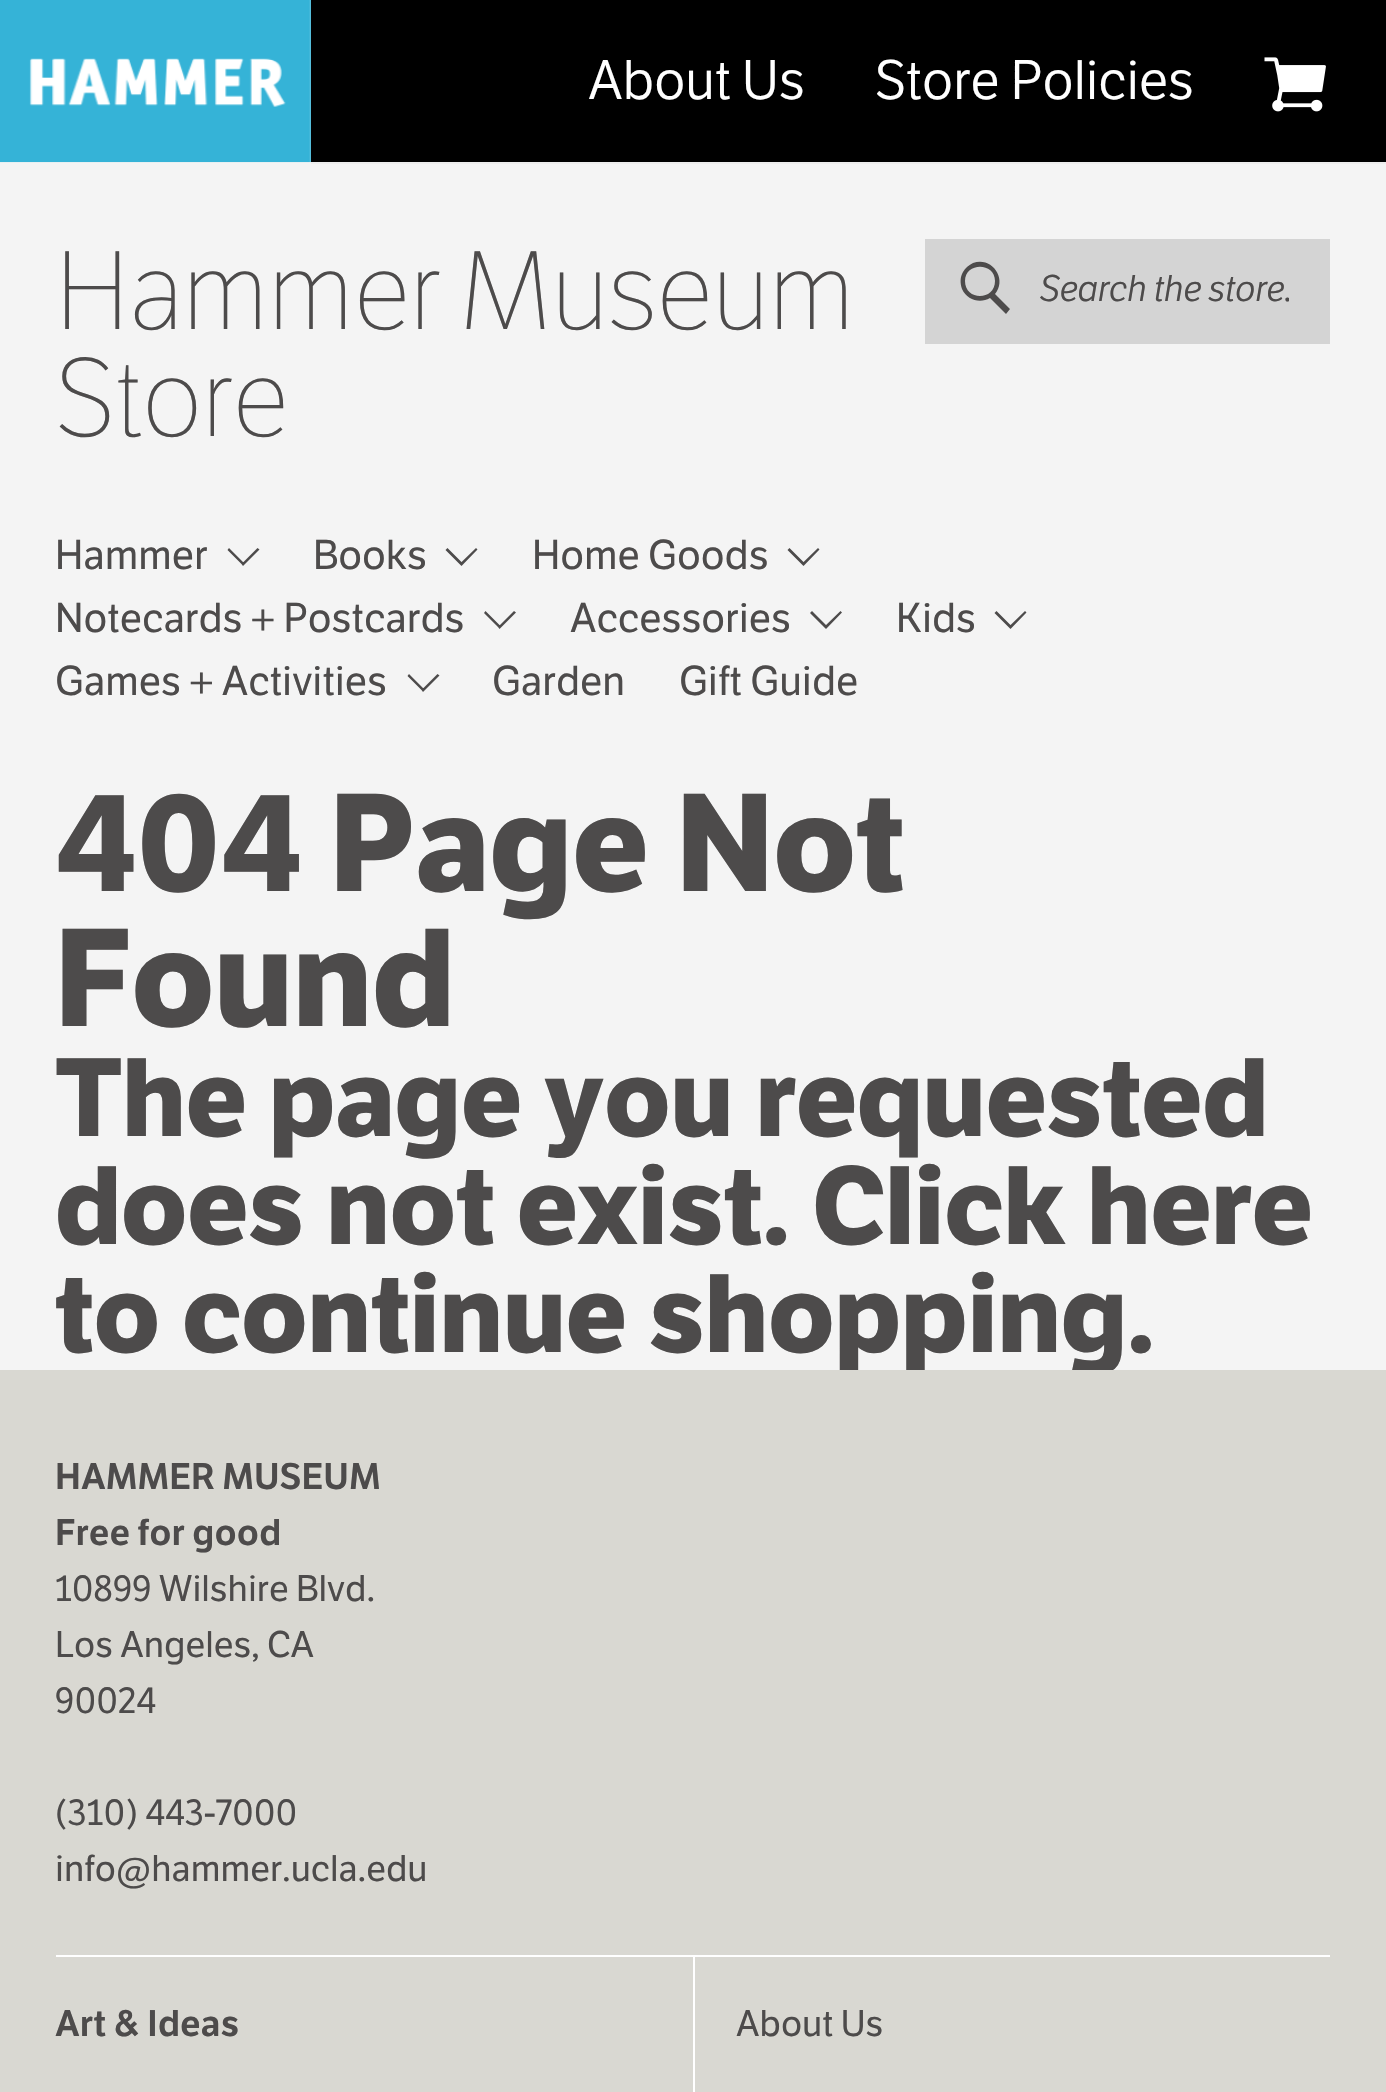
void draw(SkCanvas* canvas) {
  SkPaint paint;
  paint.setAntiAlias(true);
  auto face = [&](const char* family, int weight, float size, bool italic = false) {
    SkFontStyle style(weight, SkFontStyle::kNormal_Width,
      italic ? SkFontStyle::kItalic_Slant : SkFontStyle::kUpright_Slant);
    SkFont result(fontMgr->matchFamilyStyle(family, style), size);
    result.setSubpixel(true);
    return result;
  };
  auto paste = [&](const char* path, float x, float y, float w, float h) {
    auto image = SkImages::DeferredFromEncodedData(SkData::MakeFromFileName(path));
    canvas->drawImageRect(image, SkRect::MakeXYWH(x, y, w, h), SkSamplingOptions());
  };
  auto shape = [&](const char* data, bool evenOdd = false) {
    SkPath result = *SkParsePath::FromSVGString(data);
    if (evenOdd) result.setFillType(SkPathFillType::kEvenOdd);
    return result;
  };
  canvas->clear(0xfff4f4f4);
  paint.setColor(0xffededed);
  canvas->drawRect(SkRect::MakeXYWH(311, 162, 1075, 2), paint);
  paint.setColor(0xff000000);
  canvas->drawRect(SkRect::MakeXYWH(311, 0, 1075, 162), paint);
  paste("img/1.png", 0, 0, 311, 163);
  paste("img/2.png", 1264, 57, 62, 55);
  paint.setColor(0xffd4d4d4);
  canvas->drawRect(SkRect::MakeXYWH(925, 239, 405, 105), paint);
  paint.setColor(0xff4d4b4b);
  canvas->drawPath(shape("M1010 309L995 294C1008 278 991 256 973 263C969 265 965 268 963 272C960 277 960 283 962 289C967 300 980 304 990 298L1006 314ZM965 281C965 262 995 262 995 281C995 301 965 301 965 281Z"), paint);
  canvas->drawPath(shape("M227.5 550L229 548L244 563L242.5 565ZM241.5 564L257.5 548L259.5 549.5L243 566Z"), paint);
  canvas->drawPath(shape("M445.5 550L447.5 548L462.5 563L460.5 565ZM459.5 564L476 548L477.5 549.5L461.5 566Z"), paint);
  canvas->drawPath(shape("M787.5 550L789.5 548L804.5 563L802.5 565ZM801.5 564L818 548L819.5 549.5L803.5 566Z"), paint);
  canvas->drawPath(shape("M484 613L485.5 611L500.5 626L499 628ZM498 627L514 611L516 612.5L499.5 629Z"), paint);
  canvas->drawPath(shape("M810 613L812 611L827 626L825 628ZM824 627L840.5 611L842 612.5L826 629Z"), paint);
  canvas->drawPath(shape("M994.5 613L996.5 611L1011.5 626L1009.5 628ZM1008.5 627L1025 611L1026.5 612.5L1010.5 629Z"), paint);
  canvas->drawPath(shape("M407.5 676L409 674L424 689L422.5 691ZM421.5 690L437.5 674L439.5 675.5L423 692Z"), paint);
  auto f0 = face("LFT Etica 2", 400, 54);
  paint.setColor(0xffffffff);
  canvas->drawString("About Us", 588, 99, f0, paint);
  canvas->drawString("Store Policies", 875, 99, f0, paint);
  auto f1 = face("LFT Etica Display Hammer", 200, 108);
  paint.setColor(0xff4d4b4b);
  canvas->drawString("Hammer Museum", 55, 329, f1, paint);
  canvas->drawString("Store", 55, 436, f1, paint);
  canvas->save();
  canvas->clipRect(SkRect::MakeXYWH(1040, 266, 249, 47));
  auto f2 = face("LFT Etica", 400, 36, true);
  canvas->drawString("Search the store.", 1040, 301, f2, paint);
  canvas->restore();
  auto f3 = face("LFT Etica", 400, 40.5f);
  {
    const struct { const char* s; float x, y; } items[] = {
      {"Hammer", 55, 569},
      {"Books", 313, 569},
      {"Home Goods", 532, 569},
      {"Notecards + Postcards", 55, 632},
      {"Accessories", 570, 632},
      {"Kids", 896, 632},
      {"Games + Activities", 55, 695},
      {"Garden", 492, 695},
      {"Gift Guide", 679, 695},
    };
    for (auto [s, x, y] : items) {
      canvas->drawString(s, x, y, f3, paint);
    }
  }
  auto f4 = face("LFT Etica", 700, 135);
  canvas->drawString("404 Page Not", 55, 891, f4, paint);
  canvas->drawString("Found", 55, 1026, f4, paint);
  auto f5 = face("LFT Etica", 700, 108);
  {
    const struct { const char* s; float x, y; } items[] = {
      {"The page you requested", 55, 1136},
      {"does not exist. Click", 55, 1244},
      {"here", 1087, 1244},
      {"to continue shopping.", 55, 1352},
    };
    for (auto [s, x, y] : items) {
      canvas->drawString(s, x, y, f5, paint);
    }
  }
  paint.setColor(0xffd9d8d2);
  canvas->drawRect(SkRect::MakeXYWH(0, 1370, 1386, 722), paint);
  auto f6 = face("LFT Etica", 600, 36);
  paint.setColor(0xff4d4b4b);
  canvas->drawString("HAMMER MUSEUM", 55, 1489, f6, paint);
  canvas->drawString("Free for good", 55, 1545, f6, paint);
  auto f7 = face("LFT Etica", 400, 36);
  {
    const struct { const char* s; float x, y; } items[] = {
      {"10899 Wilshire Blvd.", 55, 1601},
      {"Los Angeles, CA", 55, 1657},
      {"90024", 55, 1713},
      {"(310) 443-7000", 55, 1825},
      {"info@hammer.ucla.edu", 55, 1881},
    };
    for (auto [s, x, y] : items) {
      canvas->drawString(s, x, y, f7, paint);
    }
  }
  paint.setColor(0xffffffff);
  canvas->drawRect(SkRect::MakeXYWH(56, 1955, 637, 2), paint);
  paint.setColor(0xff4d4b4b);
  canvas->drawString("Art & Ideas", 55, 2036, f6, paint);
  paint.setColor(0xffffffff);
  canvas->drawRect(SkRect::MakeXYWH(693, 1955, 2, 137), paint);
  canvas->drawRect(SkRect::MakeXYWH(695, 1955, 635, 2), paint);
  paint.setColor(0xff4d4b4b);
  canvas->drawString("About Us", 736, 2036, f7, paint);
}
